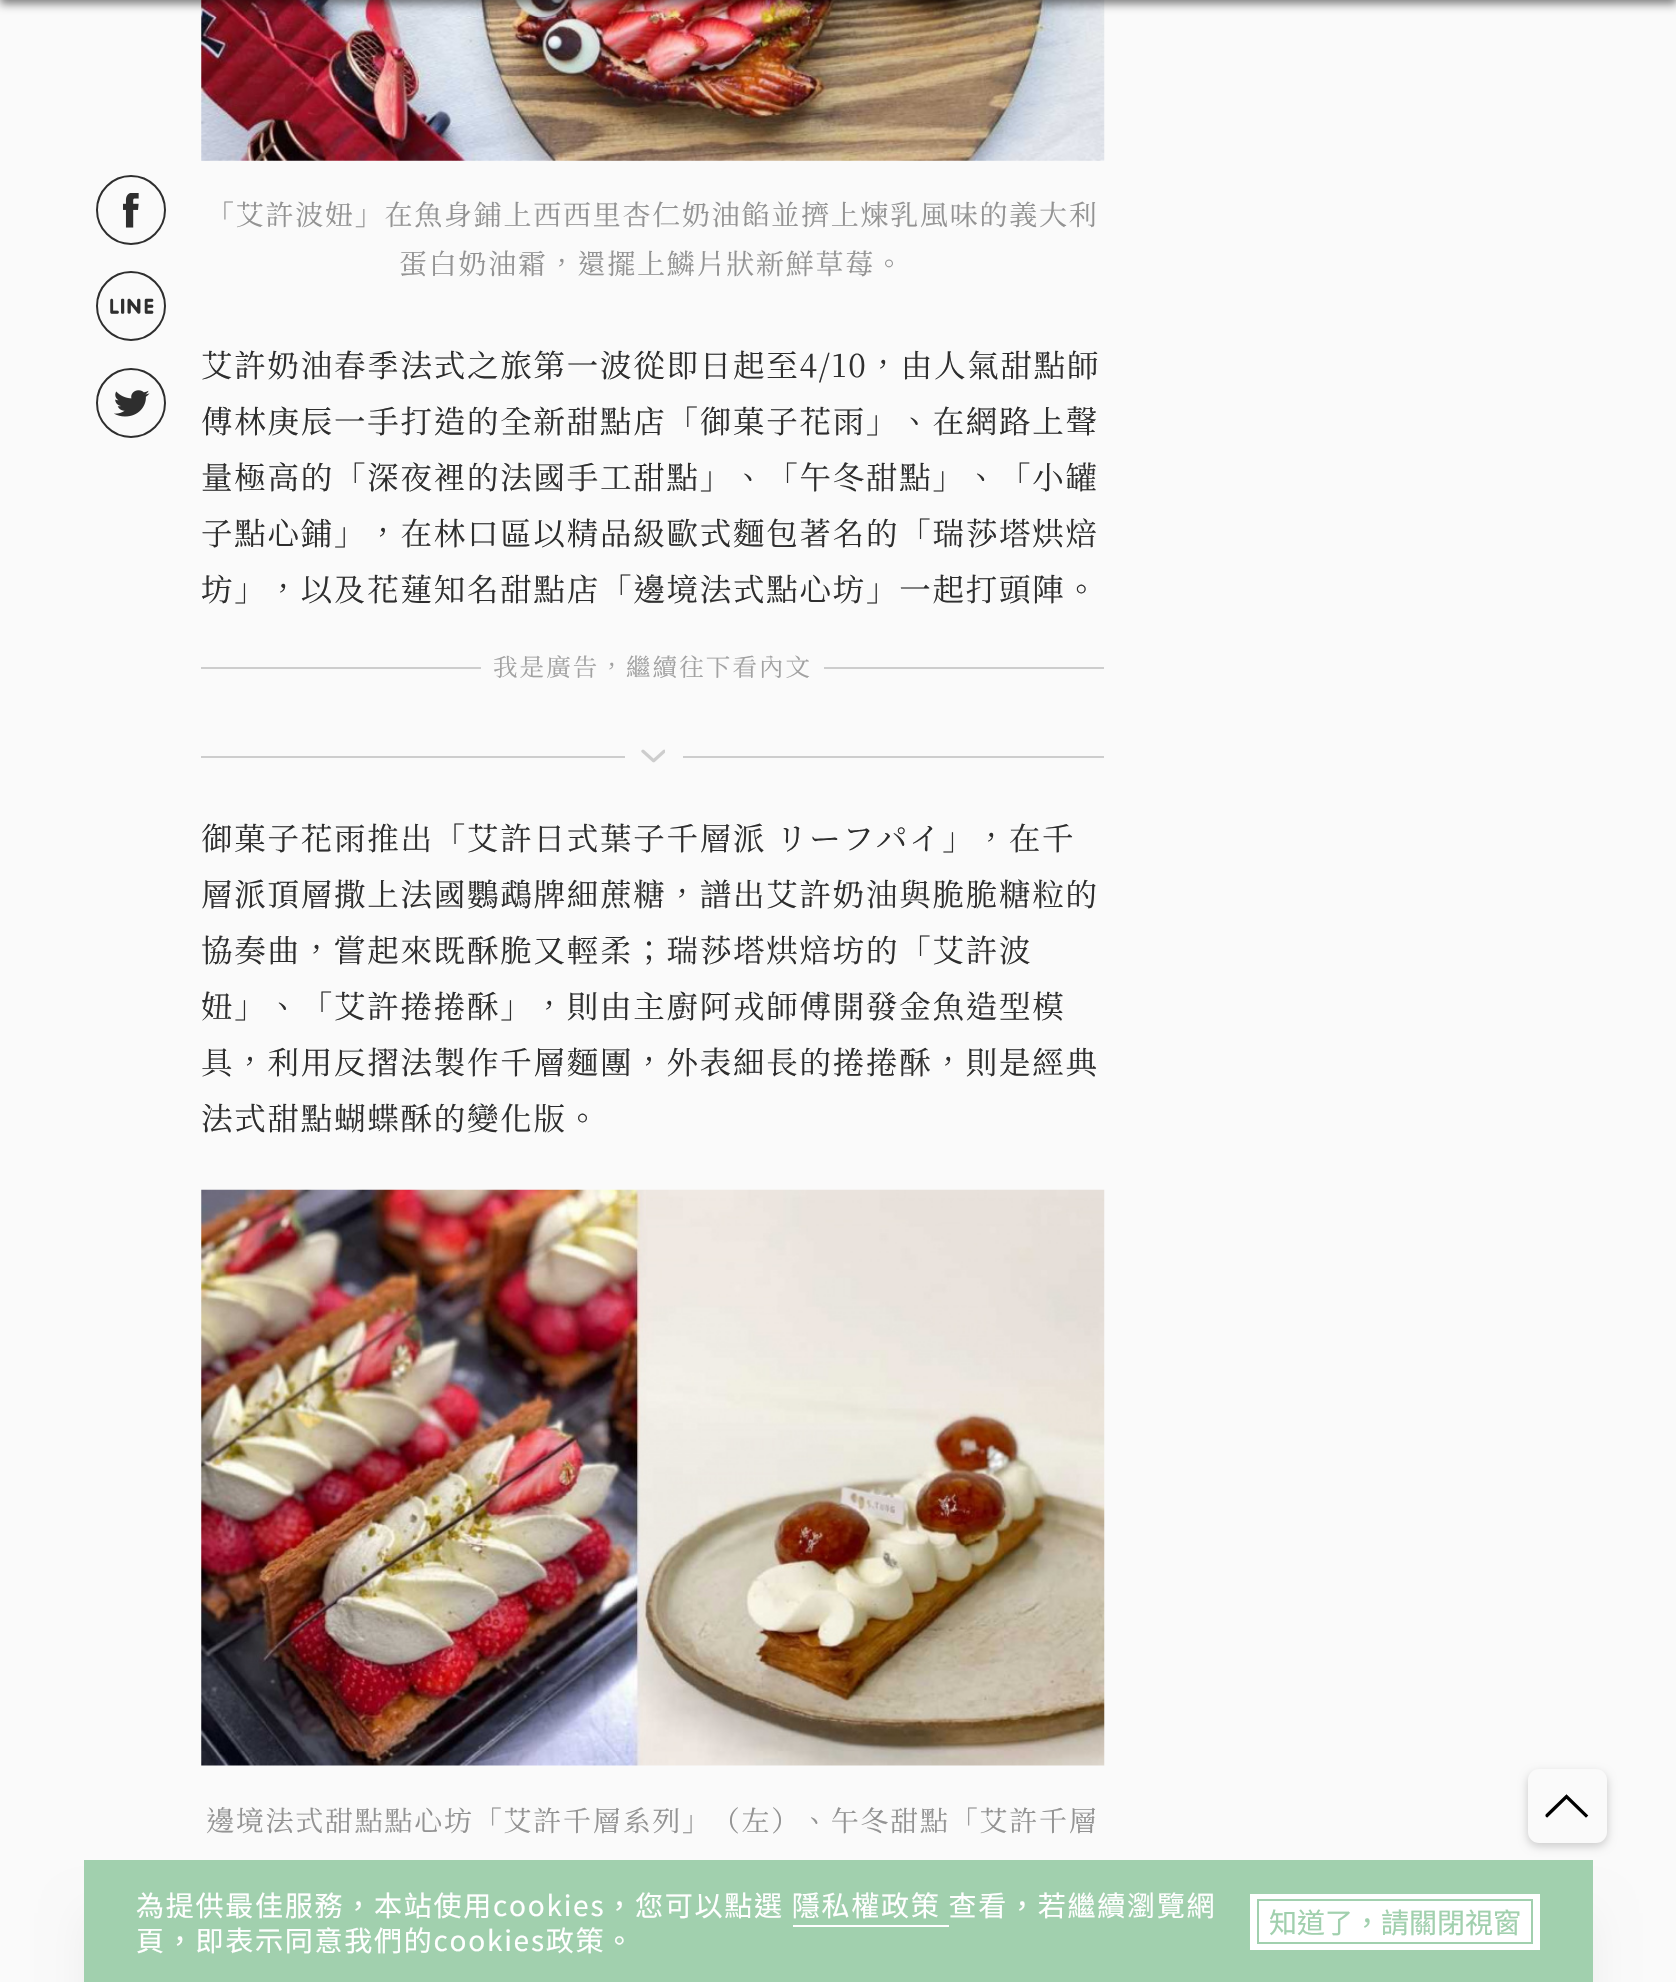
void draw(SkCanvas* canvas) {
  SkPaint paint;
  paint.setAntiAlias(true);
  auto face = [&](const char* family, int weight, float size, bool italic = false) {
    SkFontStyle style(weight, SkFontStyle::kNormal_Width,
      italic ? SkFontStyle::kItalic_Slant : SkFontStyle::kUpright_Slant);
    SkFont result(fontMgr->matchFamilyStyle(family, style), size);
    result.setSubpixel(true);
    return result;
  };
  auto writeSpaced = [&](const char* s, float x, float y, const SkFont& font, const SkPaint& ink, float letter, float word) {
    std::vector<SkGlyphID> glyphs(font.countText(s, strlen(s), SkTextEncoding::kUTF8));
    std::vector<float> xs(glyphs.size());
    font.textToGlyphs(s, strlen(s), SkTextEncoding::kUTF8, glyphs);
    font.getXPos(glyphs, xs, x);
    float extra = 0;
    for (size_t i = 0; i < glyphs.size(); i++) {
      xs[i] += extra;
      extra += letter + word * (glyphs[i] == font.unicharToGlyph(' '));
    }
    canvas->drawTextBlob(SkTextBlob::MakeFromPosHGlyphs(glyphs, xs, y, font), 0, 0, ink);
  };
  auto paste = [&](const char* path, float x, float y, float w, float h) {
    auto image = SkImages::DeferredFromEncodedData(SkData::MakeFromFileName(path));
    canvas->drawImageRect(image, SkRect::MakeXYWH(x, y, w, h), SkSamplingOptions());
  };
  auto shape = [&](const char* data, bool evenOdd = false) {
    SkPath result = *SkParsePath::FromSVGString(data);
    if (evenOdd) result.setFillType(SkPathFillType::kEvenOdd);
    return result;
  };
  canvas->clear(0xfffafafa);
  paste("img/4.png", 201, 0, 904, 161);
  paint.setColor(0x80000000);
  paint.setMaskFilter(SkMaskFilter::MakeBlur(kNormal_SkBlurStyle, 5));
  canvas->drawRect(SkRect::MakeXYWH(0, -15, 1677, 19), paint);
  paint.setMaskFilter(nullptr);
  paint.setStroke(true);
  paint.setStrokeWidth(2);
  paint.setColor(0xff2e2e2e);
  canvas->drawCircle(131, 210, 34, paint);
  paste("img/1.png", 123, 193, 16, 35);
  canvas->drawCircle(131, 306, 34, paint);
  paste("img/2.png", 110, 298, 44, 16);
  canvas->drawCircle(131, 403, 34, paint);
  paste("img/3.png", 114, 390, 36, 27);
  paint.setStroke(false);
  {
    const struct { float x, y, w, h; SkColor color; } items[] = {
      {201, 667, 903, 2, 0xffcdcdcd},
      {201, 756, 903, 2, 0xffcdcdcd},
      {481, 667, 343, 2, 0xfffafafa},
      {625, 756, 58, 2, 0xfffafafa},
    };
    for (auto [x, y, w, h, color] : items) {
      paint.setColor(color);
      canvas->drawRect(SkRect::MakeXYWH(x, y, w, h), paint);
    }
  }
  paste("img/5.png", 641, 749, 24, 14);
  paste("img/6.png", 201, 1189, 904, 577);
  paint.setColor(0x33000000);
  paint.setMaskFilter(SkMaskFilter::MakeBlur(kNormal_SkBlurStyle, 5));
  canvas->drawRoundRect(SkRect::MakeXYWH(1528, 1773, 79, 73), 11, 11, paint);
  paint.setMaskFilter(nullptr);
  paint.setColor(0xfffafafa);
  canvas->drawRoundRect(SkRect::MakeXYWH(1528, 1769, 79, 74), 11, 11, paint);
  paint.setStroke(true);
  paint.setStrokeWidth(1.8f);
  paint.setColor(0xff000000);
  canvas->drawPath(shape("M1566.5 1797.5L1547 1816.5C1546.5 1816.5 1546 1815.5 1546.5 1815L1566.5 1795.5L1587 1815.5L1586 1816.5Z"), paint);
  paint.setStroke(false);
  paint.setColor(0x0d000000);
  paint.setMaskFilter(SkMaskFilter::MakeBlur(kNormal_SkBlurStyle, 21));
  canvas->drawRect(SkRect::MakeXYWH(84, 1913, 1509, 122), paint);
  paint.setMaskFilter(nullptr);
  {
    const struct { float x, y, w, h; SkColor color; } items[] = {
      {84, 1860, 1509, 122, 0xffa1d0ae},
      {793, 1925, 156, 2, 0xffffffff},
      {1250, 1894, 290, 56, 0xffffffff},
    };
    for (auto [x, y, w, h, color] : items) {
      paint.setColor(color);
      canvas->drawRect(SkRect::MakeXYWH(x, y, w, h), paint);
    }
  }
  paint.setStroke(true);
  paint.setStrokeWidth(2);
  paint.setColor(0xffa1d0ae);
  canvas->drawRect(SkRect::MakeXYWH(1258, 1900, 274, 43), paint);
  auto f0 = face("Noto Serif TC", 200, 28);
  paint.setStroke(false);
  paint.setColor(0xff939393);
  writeSpaced("「艾許波妞」在魚身鋪上西西里杏仁奶油餡並擠上煉乳風味的義大利", 206, 225, f0, paint, 1.75f, 0);
  writeSpaced("蛋白奶油霜，還擺上鱗片狀新鮮草莓。", 399, 274, f0, paint, 1.75f, 0);
  auto f1 = face("Noto Serif TC", 200, 31.5f);
  paint.setColor(0xff2e2e2e);
  {
    const struct { const char* s; float x, y; } items[] = {
      {"艾許奶油春季法式之旅第一波從即日起至4/10，由人氣甜點師", 201, 377},
      {"傅林庚辰一手打造的全新甜點店「御菓子花雨」、在網路上聲", 201, 433},
      {"量極高的「深夜裡的法國手工甜點」、「午冬甜點」、「小罐", 201, 489},
      {"子點心鋪」，在林口區以精品級歐式麵包著名的「瑞莎塔烘焙", 201, 545},
      {"坊」，以及花蓮知名甜點店「邊境法式點心坊」一起打頭陣。", 201, 601},
    };
    for (auto [s, x, y] : items) {
      writeSpaced(s, x, y, f1, paint, 1.75f, 0);
    }
  }
  auto f2 = face("Noto Serif TC", 200, 24.5f);
  paint.setColor(0xffa1a1a1);
  writeSpaced("我是廣告，繼續往下看內文", 493, 676, f2, paint, 2.1f, 0);
  paint.setColor(0xff2e2e2e);
  {
    const struct { const char* s; float x, y; } items[] = {
      {"御菓子花雨推出「艾許日式葉子千層派 リーフパイ」，在千", 201, 850},
      {"層派頂層撒上法國鸚鵡牌細蔗糖，譜出艾許奶油與脆脆糖粒的", 201, 906},
      {"協奏曲，嘗起來既酥脆又輕柔；瑞莎塔烘焙坊的「艾許波", 201, 962},
      {"妞」、「艾許捲捲酥」，則由主廚阿戎師傅開發金魚造型模", 201, 1018},
      {"具，利用反摺法製作千層麵團，外表細長的捲捲酥，則是經典", 201, 1074},
      {"法式甜點蝴蝶酥的變化版。", 201, 1130},
    };
    for (auto [s, x, y] : items) {
      writeSpaced(s, x, y, f1, paint, 1.75f, 0);
    }
  }
  paint.setColor(0xff939393);
  writeSpaced("邊境法式甜點點心坊「艾許千層系列」（左）、午冬甜點「艾許千層", 206, 1831, f0, paint, 1.75f, 0);
  auto f3 = face("Noto Sans TC", 400, 28);
  paint.setColor(0xffffffff);
  writeSpaced("為提供最佳服務，本站使用cookies，您可以點選 隱私權政策 查看，若繼續瀏覽網", 136, 1916, f3, paint, 1.75f, 0);
  writeSpaced("頁，即表示同意我們的cookies政策。", 136, 1951, f3, paint, 1.75f, 0);
  paint.setColor(0xffa1d0ae);
  canvas->drawString("知道了，請關閉視窗", 1269, 1933, f3, paint);
}
